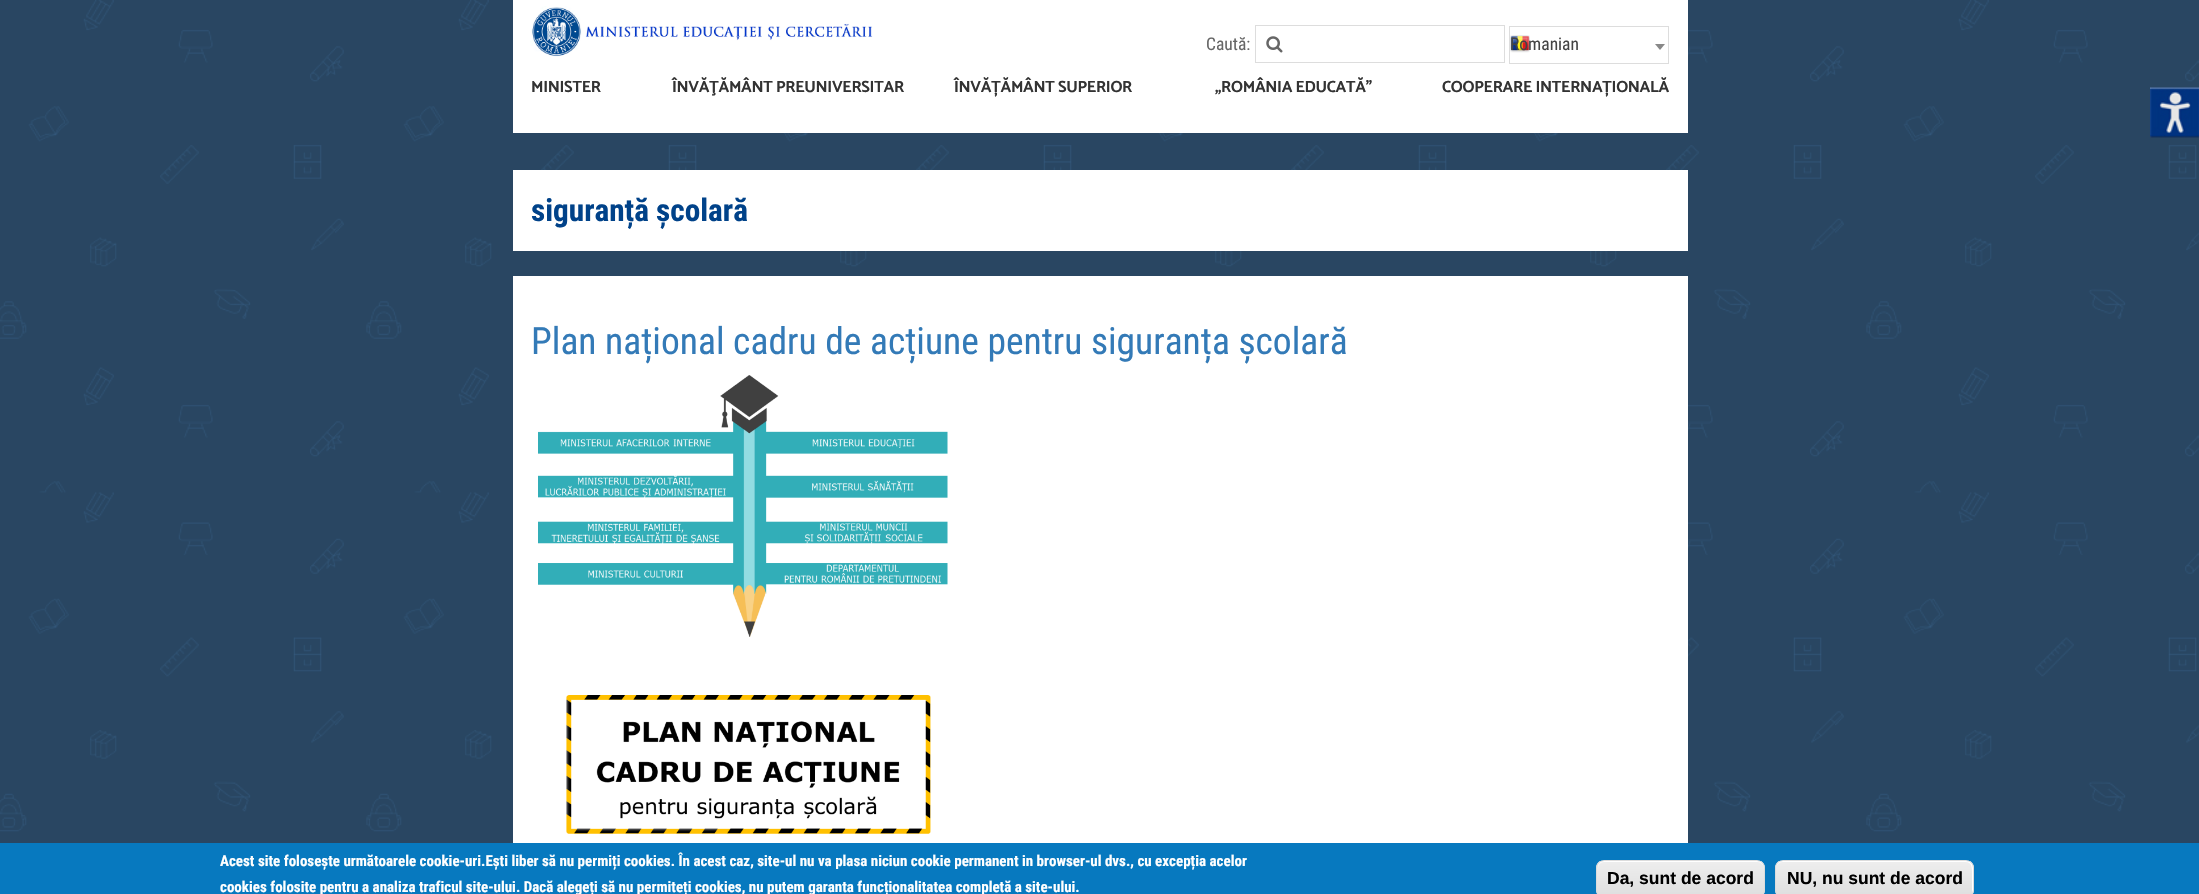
void draw(SkCanvas* canvas) {
  SkPaint paint;
  paint.setAntiAlias(true);
  auto face = [&](const char* family, int weight, float size, bool italic = false) {
    SkFontStyle style(weight, SkFontStyle::kNormal_Width,
      italic ? SkFontStyle::kItalic_Slant : SkFontStyle::kUpright_Slant);
    SkFont result(fontMgr->matchFamilyStyle(family, style), size);
    result.setSubpixel(true);
    return result;
  };
  auto writeSpaced = [&](const char* s, float x, float y, const SkFont& font, const SkPaint& ink, float letter, float word) {
    std::vector<SkGlyphID> glyphs(font.countText(s, strlen(s), SkTextEncoding::kUTF8));
    std::vector<float> xs(glyphs.size());
    font.textToGlyphs(s, strlen(s), SkTextEncoding::kUTF8, glyphs);
    font.getXPos(glyphs, xs, x);
    float extra = 0;
    for (size_t i = 0; i < glyphs.size(); i++) {
      xs[i] += extra;
      extra += letter + word * (glyphs[i] == font.unicharToGlyph(' '));
    }
    canvas->drawTextBlob(SkTextBlob::MakeFromPosHGlyphs(glyphs, xs, y, font), 0, 0, ink);
  };
  auto paste = [&](const char* path, float x, float y, float w, float h) {
    auto image = SkImages::DeferredFromEncodedData(SkData::MakeFromFileName(path));
    canvas->drawImageRect(image, SkRect::MakeXYWH(x, y, w, h), SkSamplingOptions());
  };
  auto shape = [&](const char* data, bool evenOdd = false) {
    SkPath result = *SkParsePath::FromSVGString(data);
    if (evenOdd) result.setFillType(SkPathFillType::kEvenOdd);
    return result;
  };
  canvas->clear(0xffffffff);
  paste("img/1.png", 0, 0, 2199, 843);
  paint.setColor(0xffffffff);
  canvas->drawRect(SkRect::MakeXYWH(513, 0, 1175, 133), paint);
  paste("img/2.png", 530, 6, 343, 51);
  paint.setStroke(true);
  paint.setStrokeWidth(1);
  paint.setColor(0xffdddddd);
  canvas->drawRect(SkRect::MakeXYWH(1255.5f, 25.5f, 249, 37), paint);
  paste("img/3.png", 1266, 36, 17, 17);
  canvas->drawRect(SkRect::MakeXYWH(1509.5f, 26.5f, 159, 37), paint);
  paste("img/4.png", 1510, 35, 20, 18);
  paint.setStroke(false);
  paint.setColor(0xff888888);
  canvas->drawPath(shape("M1655 44H1665L1660 50Z"), paint);
  paste("img/5.png", 2150, 87, 49, 51);
  paint.setColor(0xffffffff);
  canvas->drawRect(SkRect::MakeXYWH(513, 170, 1175, 81), paint);
  canvas->drawRect(SkRect::MakeXYWH(513, 276, 1175, 567), paint);
  paste("img/6.png", 538, 375, 410, 459);
  paint.setColor(0xff0779bf);
  canvas->drawRect(SkRect::MakeXYWH(0, 843, 2199, 51), paint);
  canvas->save();
  canvas->clipPath(shape("M1604 860H1757C1761.5 860 1765 863.5 1765 868V890C1765 894.5 1761.5 898 1757 898H1604C1599.5 898 1596 894.5 1596 890V868C1596 863.5 1599.5 860 1604 860Z"), true);
  {
    const SkColor colors[] = {0xffededed, 0xffdfdfdf};
    const float stops[] = {0.05f, 1};
    const SkPoint ends[] = {{1598, 861}, {1598, 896}};
    paint.setShader(SkGradientShader::MakeLinear(ends, colors, stops, 2, SkTileMode::kClamp));
    paint.setAlpha(255);
  }
  canvas->drawRect(SkRect::MakeXYWH(1596, 861, 169, 33), paint);
  canvas->restore();
  paint.setShader(nullptr);
  paint.setColor(0xffffffff);
  canvas->drawPath(shape("M1604 862H1758C1761 862 1764 865 1764 869V867C1764 864 1761 861 1758 861H1604C1601 861 1598 864 1598 867V869C1598 865 1600 862 1604 862Z"), paint);
  paint.setStroke(true);
  paint.setColor(0xffdcdcdc);
  canvas->drawRoundRect(SkRect::MakeXYWH(1596.5f, 860.5f, 168, 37), 7.5f, 7.5f, paint);
  canvas->save();
  canvas->clipPath(shape("M1783 860H1966C1970.5 860 1974 863.5 1974 868V890C1974 894.5 1970.5 898 1966 898H1783C1778.5 898 1775 894.5 1775 890V868C1775 863.5 1778.5 860 1783 860Z"), true);
  paint.setStroke(false);
  {
    const SkColor colors[] = {0xffededed, 0xffdfdfdf};
    const float stops[] = {0.05f, 1};
    const SkPoint ends[] = {{1776, 861}, {1776, 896}};
    paint.setShader(SkGradientShader::MakeLinear(ends, colors, stops, 2, SkTileMode::kClamp));
    paint.setAlpha(255);
  }
  canvas->drawRect(SkRect::MakeXYWH(1775, 861, 199, 33), paint);
  canvas->restore();
  paint.setShader(nullptr);
  paint.setColor(0xffffffff);
  canvas->drawPath(shape("M1782 862H1966C1973 862 1972 871 1972 876V894C1972 893 1973 891 1973 890V867C1973 864 1970 861 1967 861H1782C1779 861 1776 864 1776 867V869C1776 865 1779 862 1782 862Z"), paint);
  paint.setStroke(true);
  paint.setColor(0xffdcdcdc);
  canvas->drawRoundRect(SkRect::MakeXYWH(1775.5f, 860.5f, 198, 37), 7.5f, 7.5f, paint);
  auto f0 = face("Roboto Condensed", 400, 17.5f);
  paint.setStroke(false);
  paint.setColor(0xff666666);
  canvas->drawString("Caută:", 1206, 50, f0, paint);
  paint.setColor(0xff444444);
  canvas->drawString("Romanian", 1510, 50, f0, paint);
  auto f1 = face("Catamaran", 700, 16.25f);
  paint.setColor(0xff333333);
  {
    const struct { const char* s; float x, y; } items[] = {
      {"MINISTER", 531, 92},
      {"ÎNVĂŢĂMÂNT PREUNIVERSITAR", 672, 92},
      {"ÎNVĂȚĂMÂNT SUPERIOR", 954, 92},
      {"„ROMÂNIA EDUCATĂ”", 1215, 92},
      {"COOPERARE INTERNAȚIONALĂ", 1442, 92},
    };
    for (auto [s, x, y] : items) {
      writeSpaced(s, x, y, f1, paint, -0.3f, 0);
    }
  }
  auto f2 = face("Roboto Condensed", 700, 31.25f);
  paint.setColor(0xff004289);
  canvas->drawString("siguranță școlară", 531, 221, f2, paint);
  auto f3 = face("Roboto Condensed", 400, 37.5f);
  paint.setColor(0xff337ab7);
  canvas->drawString("Plan național cadru de acțiune pentru siguranța școlară", 531, 354, f3, paint);
  auto f4 = face("Roboto Condensed", 700, 15);
  paint.setColor(0xffffffff);
  canvas->drawString("Acest site folosește următoarele cookie-uri.Ești liber să nu permiți cookies. În acest caz, site-ul nu va plasa niciun cookie permanent in browser-ul dvs., cu excepția acelor", 220, 866, f4, paint);
  canvas->drawString("cookies folosite pentru a analiza traficul site-ului. Dacă alegeți să nu permiteți cookies, nu putem garanta funcționalitatea completă a site-ului.", 220, 892, f4, paint);
  auto f5 = face("Liberation Sans", 700, 17.5f);
  paint.setColor(0xff000000);
  canvas->drawString("Da, sunt de acord", 1607, 884, f5, paint);
  canvas->drawString("NU, nu sunt de acord", 1787, 884, f5, paint);
}
